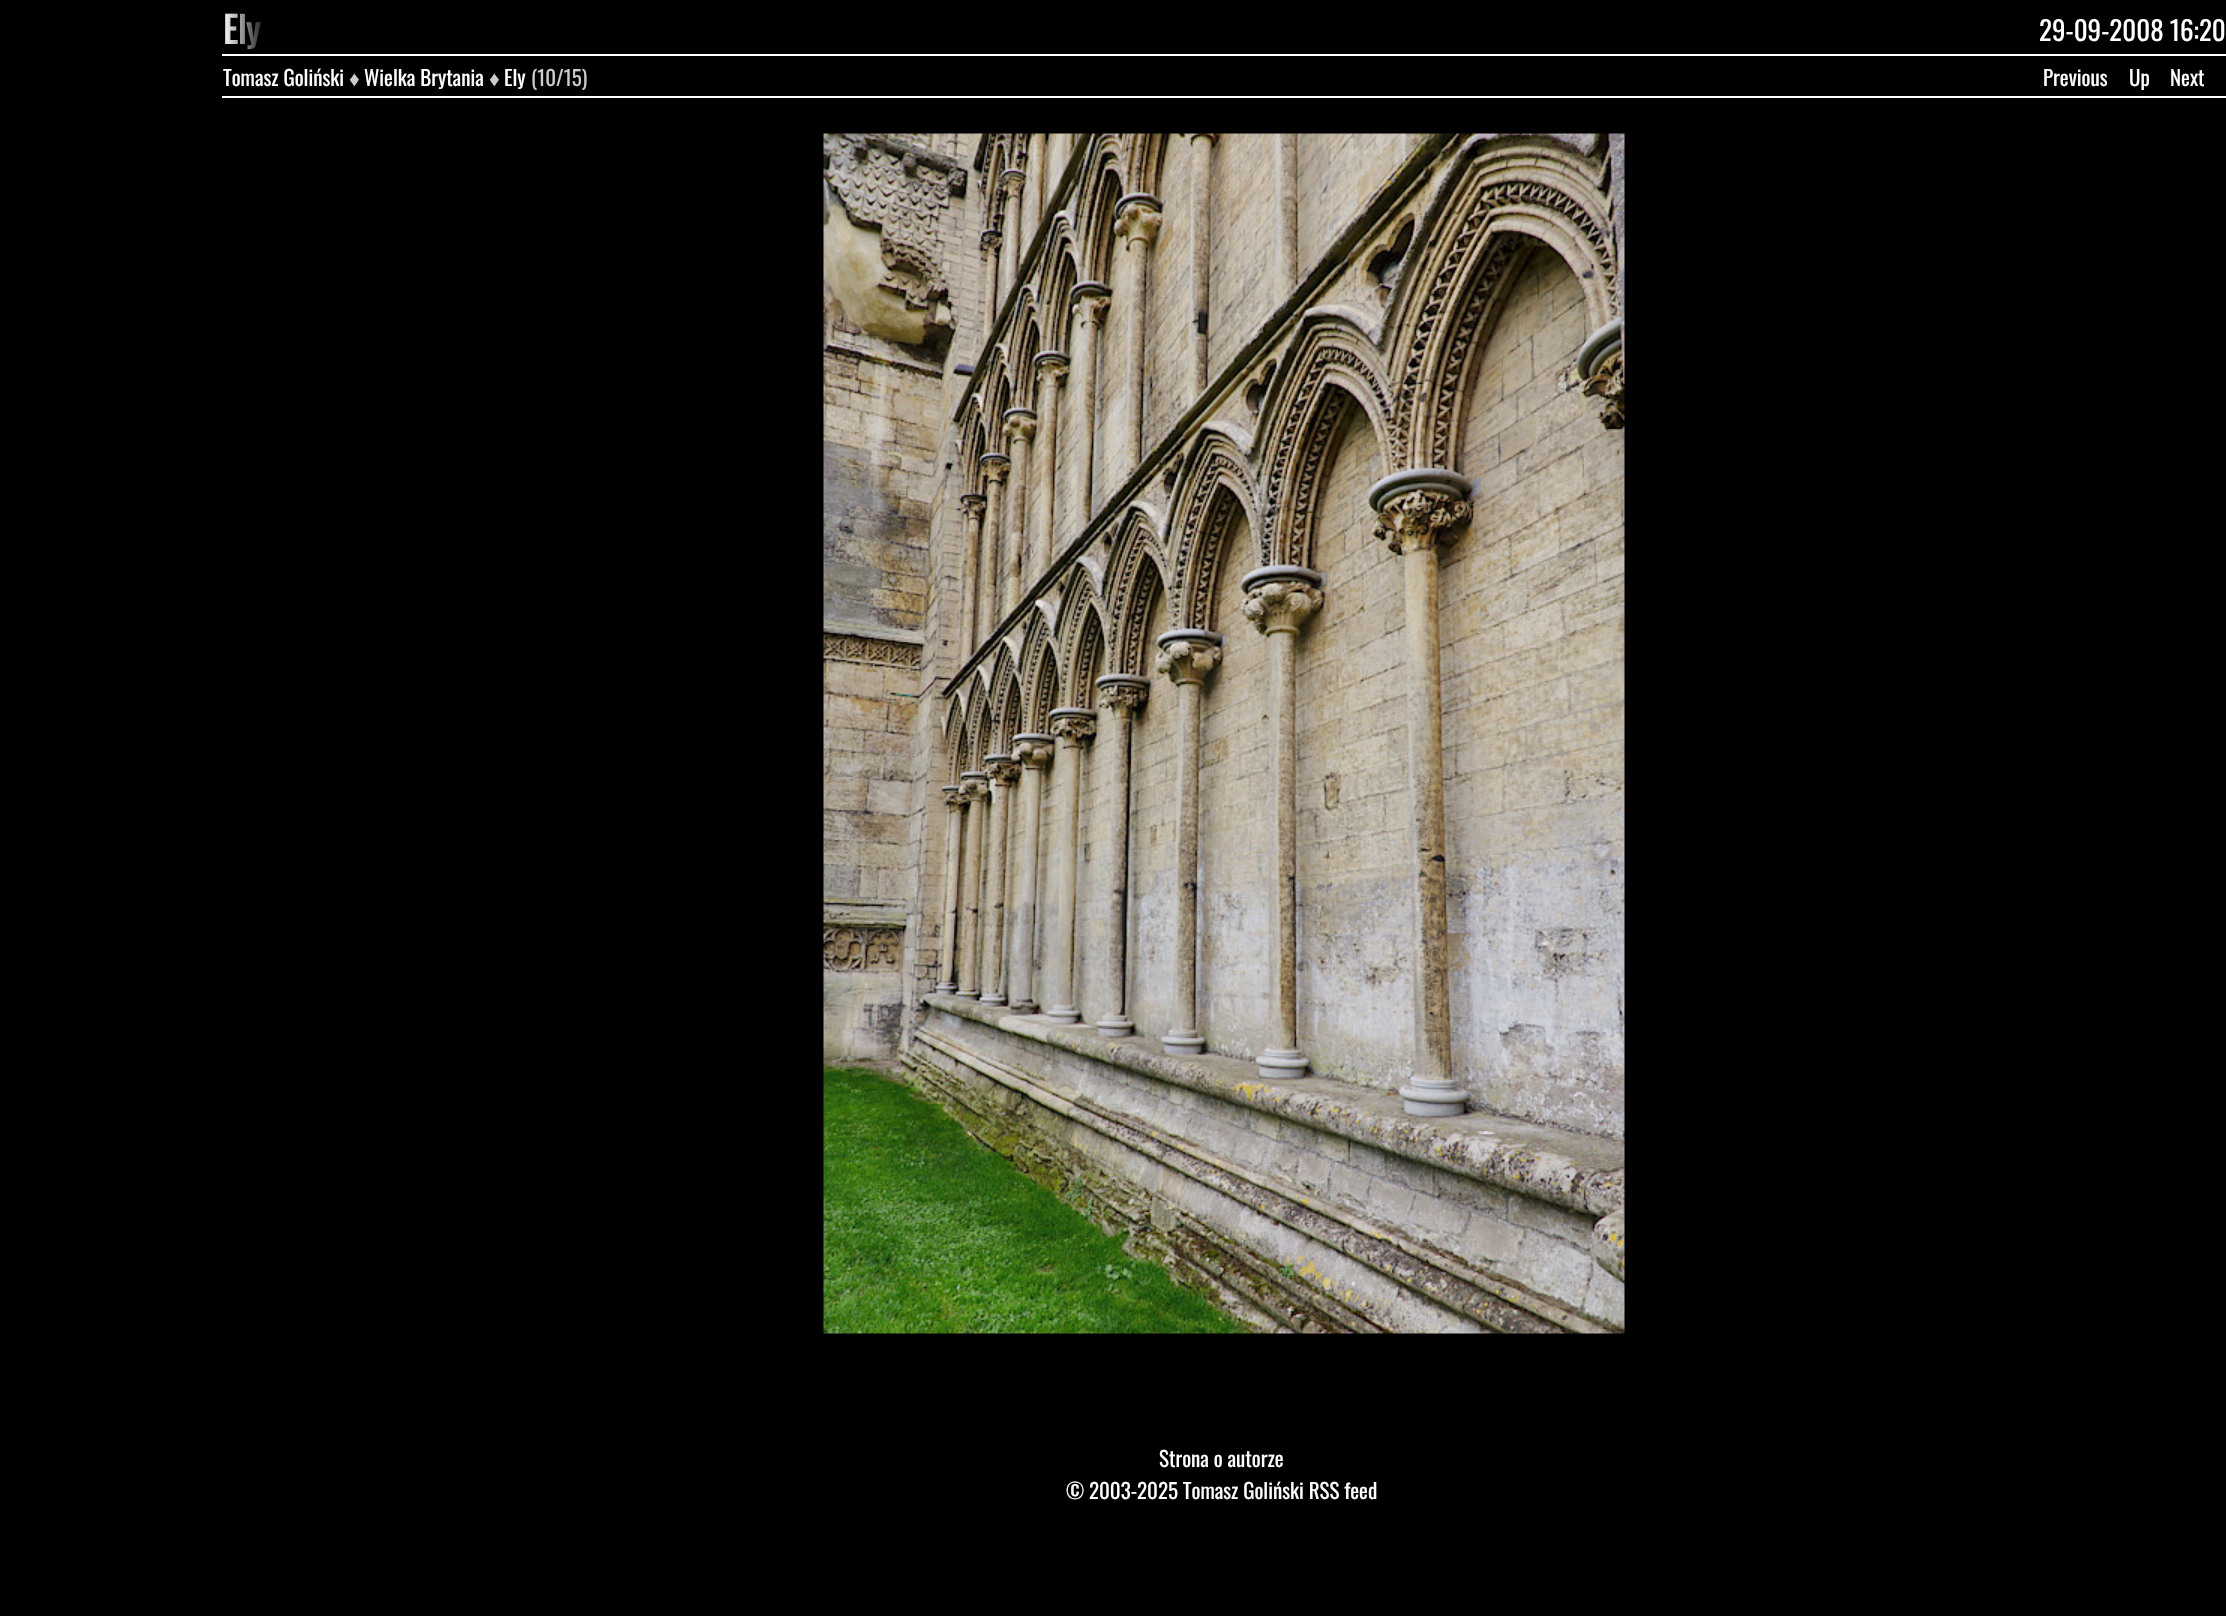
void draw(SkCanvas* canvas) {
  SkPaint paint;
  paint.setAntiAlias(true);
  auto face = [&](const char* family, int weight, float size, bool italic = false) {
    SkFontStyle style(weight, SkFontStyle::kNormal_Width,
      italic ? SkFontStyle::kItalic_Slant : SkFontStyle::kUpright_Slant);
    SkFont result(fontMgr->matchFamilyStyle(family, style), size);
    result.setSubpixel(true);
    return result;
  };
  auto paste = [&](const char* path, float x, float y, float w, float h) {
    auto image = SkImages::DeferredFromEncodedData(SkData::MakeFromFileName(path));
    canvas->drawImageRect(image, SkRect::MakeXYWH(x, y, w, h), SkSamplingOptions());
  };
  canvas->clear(0xff000000);
  paint.setColor(0xffffffff);
  canvas->drawRect(SkRect::MakeXYWH(222, 54, 2004, 2), paint);
  canvas->drawRect(SkRect::MakeXYWH(222, 96, 2004, 2), paint);
  paste("img/1.png", 823, 133, 802, 1201);
  auto f0 = face("Oswald", 700, 36);
  {
    const SkColor colors[] = {0xffffffff, 0xff333333};
    const float stops[] = {0, 1};
    const SkPoint ends[] = {{223, 27}, {260, 27}};
    paint.setShader(SkGradientShader::MakeLinear(ends, colors, stops, 2, SkTileMode::kClamp));
    paint.setAlpha(255);
  }
  canvas->drawString("Ely", 223, 44, f0, paint);
  auto f1 = face("Oswald", 400, 27);
  paint.setShader(nullptr);
  paint.setColor(0xffffffff);
  canvas->drawString("29-09-2008 16:20", 2039, 41, f1, paint);
  auto f2 = face("Oswald", 400, 21);
  canvas->drawString("Tomasz Goliński", 223, 86, f2, paint);
  auto f3 = face("Liberation Sans", 400, 21);
  paint.setColor(0xffcccccc);
  canvas->drawString("♦", 349, 86, f3, paint);
  paint.setColor(0xffffffff);
  canvas->drawString("Wielka Brytania", 364, 86, f2, paint);
  paint.setColor(0xffcccccc);
  canvas->drawString("♦", 489, 86, f3, paint);
  paint.setColor(0xffffffff);
  canvas->drawString("Ely", 504, 86, f2, paint);
  paint.setColor(0xffcccccc);
  canvas->drawString("(10/15)", 531, 86, f2, paint);
  paint.setColor(0xffffffff);
  {
    const struct { const char* s; float x, y; } items[] = {
      {"Previous", 2043, 86},
      {"Up", 2129, 86},
      {"Next", 2170, 86},
      {"Strona o autorze", 1159, 1467},
      {"© 2003-2025 Tomasz Goliński RSS feed", 1066, 1499},
    };
    for (auto [s, x, y] : items) {
      canvas->drawString(s, x, y, f2, paint);
    }
  }
}
